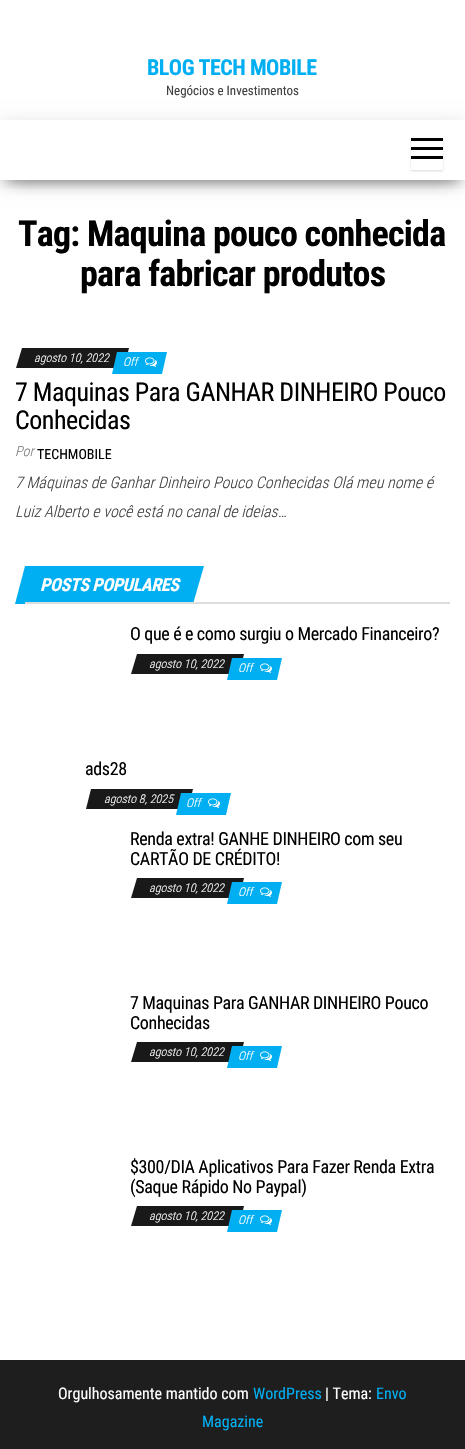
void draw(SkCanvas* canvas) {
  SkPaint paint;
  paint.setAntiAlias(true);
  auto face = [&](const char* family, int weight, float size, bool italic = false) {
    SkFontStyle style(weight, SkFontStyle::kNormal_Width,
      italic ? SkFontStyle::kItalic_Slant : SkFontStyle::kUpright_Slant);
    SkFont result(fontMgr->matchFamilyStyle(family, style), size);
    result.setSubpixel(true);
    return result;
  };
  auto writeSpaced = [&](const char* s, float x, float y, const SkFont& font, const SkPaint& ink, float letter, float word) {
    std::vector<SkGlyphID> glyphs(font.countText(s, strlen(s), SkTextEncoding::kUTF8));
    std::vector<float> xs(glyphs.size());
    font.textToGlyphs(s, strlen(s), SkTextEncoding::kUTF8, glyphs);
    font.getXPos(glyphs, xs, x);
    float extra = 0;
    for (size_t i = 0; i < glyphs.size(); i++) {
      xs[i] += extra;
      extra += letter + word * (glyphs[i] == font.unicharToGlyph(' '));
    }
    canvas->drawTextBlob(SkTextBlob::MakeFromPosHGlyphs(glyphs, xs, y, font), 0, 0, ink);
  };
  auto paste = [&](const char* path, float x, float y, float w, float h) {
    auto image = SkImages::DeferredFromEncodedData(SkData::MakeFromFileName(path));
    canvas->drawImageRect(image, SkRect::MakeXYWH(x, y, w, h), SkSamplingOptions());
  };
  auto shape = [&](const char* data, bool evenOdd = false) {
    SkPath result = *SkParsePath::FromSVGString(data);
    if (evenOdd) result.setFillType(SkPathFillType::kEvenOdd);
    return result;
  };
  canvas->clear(0xffffffff);
  canvas->save();
  canvas->clipRect(SkRect::MakeXYWH(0, 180, 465, 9));
  paint.setColor(0x33000000);
  paint.setMaskFilter(SkMaskFilter::MakeBlur(kNormal_SkBlurStyle, 5));
  canvas->drawRect(SkRect::MakeXYWH(5, 133, 455, 50), paint);
  paint.setMaskFilter(nullptr);
  canvas->restore();
  canvas->save();
  canvas->clipPath(shape("M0 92H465V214H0ZM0 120H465V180H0Z", true), true);
  paint.setColor(0x1f000000);
  paint.setMaskFilter(SkMaskFilter::MakeBlur(kNormal_SkBlurStyle, 10));
  canvas->drawRect(SkRect::MakeXYWH(0, 123, 465, 60), paint);
  paint.setMaskFilter(nullptr);
  canvas->restore();
  canvas->save();
  canvas->clipRect(SkRect::MakeXYWH(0, 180, 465, 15));
  paint.setColor(0x6b000000);
  paint.setMaskFilter(SkMaskFilter::MakeBlur(kNormal_SkBlurStyle, 10));
  canvas->drawRect(SkRect::MakeXYWH(12, 142, 441, 36), paint);
  paint.setMaskFilter(nullptr);
  canvas->restore();
  canvas->save();
  canvas->clipPath(shape("M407 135H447V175H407ZM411 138H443V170H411Z", true), true);
  paint.setColor(0x26000000);
  paint.setMaskFilter(SkMaskFilter::MakeBlur(kNormal_SkBlurStyle, 1));
  canvas->drawRect(SkRect::MakeXYWH(411, 139, 32, 32), paint);
  paint.setMaskFilter(nullptr);
  canvas->restore();
  {
    const struct { float x, y, w, h; SkColor color; } items[] = {
      {411, 138, 32, 3, 0xff000000},
      {411, 147, 32, 3, 0xff000000},
      {411, 156, 32, 3, 0xff000000},
    };
    for (auto [x, y, w, h, color] : items) {
      paint.setColor(color);
      canvas->drawRect(SkRect::MakeXYWH(x, y, w, h), paint);
    }
  }
  paint.setColor(0xff191919);
  canvas->drawPath(shape("M22 348H129L124 368H16Z"), paint);
  paint.setColor(0xff00aff2);
  canvas->drawPath(shape("M117 352H167L162 374H112Z"), paint);
  paste("img/1.png", 145, 357, 12, 10);
  canvas->drawPath(shape("M25 566H204L193 604H15Z"), paint);
  paint.setColor(0xffdddddd);
  canvas->drawRect(SkRect::MakeXYWH(25, 602, 425, 2), paint);
  paint.setColor(0xff191919);
  canvas->drawPath(shape("M137 654H244L239 674H131Z"), paint);
  paint.setColor(0xff00aff2);
  canvas->drawPath(shape("M232 658H282L277 680H227Z"), paint);
  paste("img/1.png", 260, 663, 12, 10);
  paint.setColor(0xff191919);
  canvas->drawPath(shape("M91 789H193L188 809H86Z"), paint);
  paint.setColor(0xff00aff2);
  canvas->drawPath(shape("M181 793H231L226 815H176Z"), paint);
  paste("img/1.png", 208, 798, 12, 10);
  paint.setColor(0xff191919);
  canvas->drawPath(shape("M137 878H244L239 898H131Z"), paint);
  paint.setColor(0xff00aff2);
  canvas->drawPath(shape("M232 882H282L277 904H227Z"), paint);
  paste("img/1.png", 260, 887, 12, 10);
  paint.setColor(0xff191919);
  canvas->drawPath(shape("M137 1042H244L239 1062H131Z"), paint);
  paint.setColor(0xff00aff2);
  canvas->drawPath(shape("M232 1046H282L277 1068H227Z"), paint);
  paste("img/1.png", 260, 1051, 12, 10);
  paint.setColor(0xff191919);
  canvas->drawPath(shape("M137 1206H244L239 1226H131Z"), paint);
  paint.setColor(0xff00aff2);
  canvas->drawPath(shape("M232 1210H282L277 1232H227Z"), paint);
  paste("img/1.png", 260, 1215, 12, 10);
  paint.setColor(0xff1e1e1e);
  canvas->drawRect(SkRect::MakeXYWH(0, 1360, 465, 89), paint);
  auto f0 = face("Roboto Condensed", 700, 22);
  paint.setColor(0xff00aff2);
  writeSpaced("BLOG TECH MOBILE", 147, 75, f0, paint, -0.5f, 0);
  auto f1 = face("Roboto Condensed", 400, 13);
  paint.setColor(0xff404040);
  canvas->drawString("Negócios e Investimentos", 166, 95, f1, paint);
  auto f2 = face("Roboto Condensed", 700, 36);
  paint.setColor(0xff000000);
  writeSpaced("Tag: Maquina pouco conhecida", 18, 246, f2, paint, -0.75f, 0);
  writeSpaced("para fabricar produtos", 80, 286, f2, paint, -0.75f, 0);
  auto f3 = face("Roboto Condensed", 300, 12, true);
  paint.setColor(0xffffffff);
  canvas->drawString("agosto 10, 2022", 34, 362, f3, paint);
  canvas->drawString("Off", 123, 366, f3, paint);
  auto f4 = face("Roboto Condensed", 400, 26);
  paint.setColor(0xff000000);
  writeSpaced("7 Maquinas Para GANHAR DINHEIRO Pouco", 15, 401, f4, paint, -0.5f, 0);
  writeSpaced("Conhecidas", 15, 429, f4, paint, -0.5f, 0);
  auto f5 = face("Roboto Condensed", 300, 14, true);
  paint.setColor(0xff797979);
  canvas->drawString("Por", 15, 456, f5, paint);
  auto f6 = face("Roboto Condensed", 400, 14);
  paint.setColor(0xff000000);
  canvas->drawString("TECHMOBILE", 37, 459, f6, paint);
  auto f7 = face("Roboto Condensed", 300, 16, true);
  paint.setColor(0xff404040);
  canvas->drawString("7 Máquinas de Ganhar Dinheiro Pouco Conhecidas Olá meu nome é", 15, 488, f7, paint);
  canvas->drawString("Luiz Alberto e você está no canal de ideias…", 15, 517, f7, paint);
  auto f8 = face("Roboto Condensed", 700, 18, true);
  paint.setColor(0xffffffff);
  writeSpaced("POSTS POPULARES", 40, 591, f8, paint, -0.35f, 0);
  auto f9 = face("Roboto Condensed", 400, 18);
  paint.setColor(0xff000000);
  writeSpaced("O que é e como surgiu o Mercado Financeiro?", 130, 640, f9, paint, -0.35f, 0);
  paint.setColor(0xffffffff);
  canvas->drawString("agosto 10, 2022", 149, 668, f3, paint);
  canvas->drawString("Off", 238, 672, f3, paint);
  paint.setColor(0xff000000);
  writeSpaced("ads28", 85, 775, f9, paint, -0.35f, 0);
  paint.setColor(0xffffffff);
  canvas->drawString("agosto 8, 2025", 104, 803, f3, paint);
  canvas->drawString("Off", 186, 807, f3, paint);
  paint.setColor(0xff000000);
  writeSpaced("Renda extra! GANHE DINHEIRO com seu", 130, 845, f9, paint, -0.35f, 0);
  writeSpaced("CARTÃO DE CRÉDITO!", 130, 865, f9, paint, -0.35f, 0);
  paint.setColor(0xffffffff);
  canvas->drawString("agosto 10, 2022", 149, 892, f3, paint);
  canvas->drawString("Off", 238, 896, f3, paint);
  paint.setColor(0xff000000);
  writeSpaced("7 Maquinas Para GANHAR DINHEIRO Pouco", 130, 1009, f9, paint, -0.35f, 0);
  writeSpaced("Conhecidas", 130, 1029, f9, paint, -0.35f, 0);
  paint.setColor(0xffffffff);
  canvas->drawString("agosto 10, 2022", 149, 1056, f3, paint);
  canvas->drawString("Off", 238, 1060, f3, paint);
  paint.setColor(0xff000000);
  writeSpaced("$300/DIA Aplicativos Para Fazer Renda Extra", 130, 1173, f9, paint, -0.35f, 0);
  writeSpaced("(Saque Rápido No Paypal)", 130, 1193, f9, paint, -0.35f, 0);
  paint.setColor(0xffffffff);
  canvas->drawString("agosto 10, 2022", 149, 1220, f3, paint);
  canvas->drawString("Off", 238, 1224, f3, paint);
  auto f10 = face("Roboto Condensed", 400, 16);
  canvas->drawString("Orgulhosamente mantido com", 58, 1399, f10, paint);
  paint.setColor(0xff00aff2);
  canvas->drawString("WordPress", 253, 1399, f10, paint);
  paint.setColor(0xffffffff);
  canvas->drawString("| Tema:", 325, 1399, f10, paint);
  paint.setColor(0xff00aff2);
  canvas->drawString("Envo", 376, 1399, f10, paint);
  canvas->drawString("Magazine", 202, 1427, f10, paint);
}
